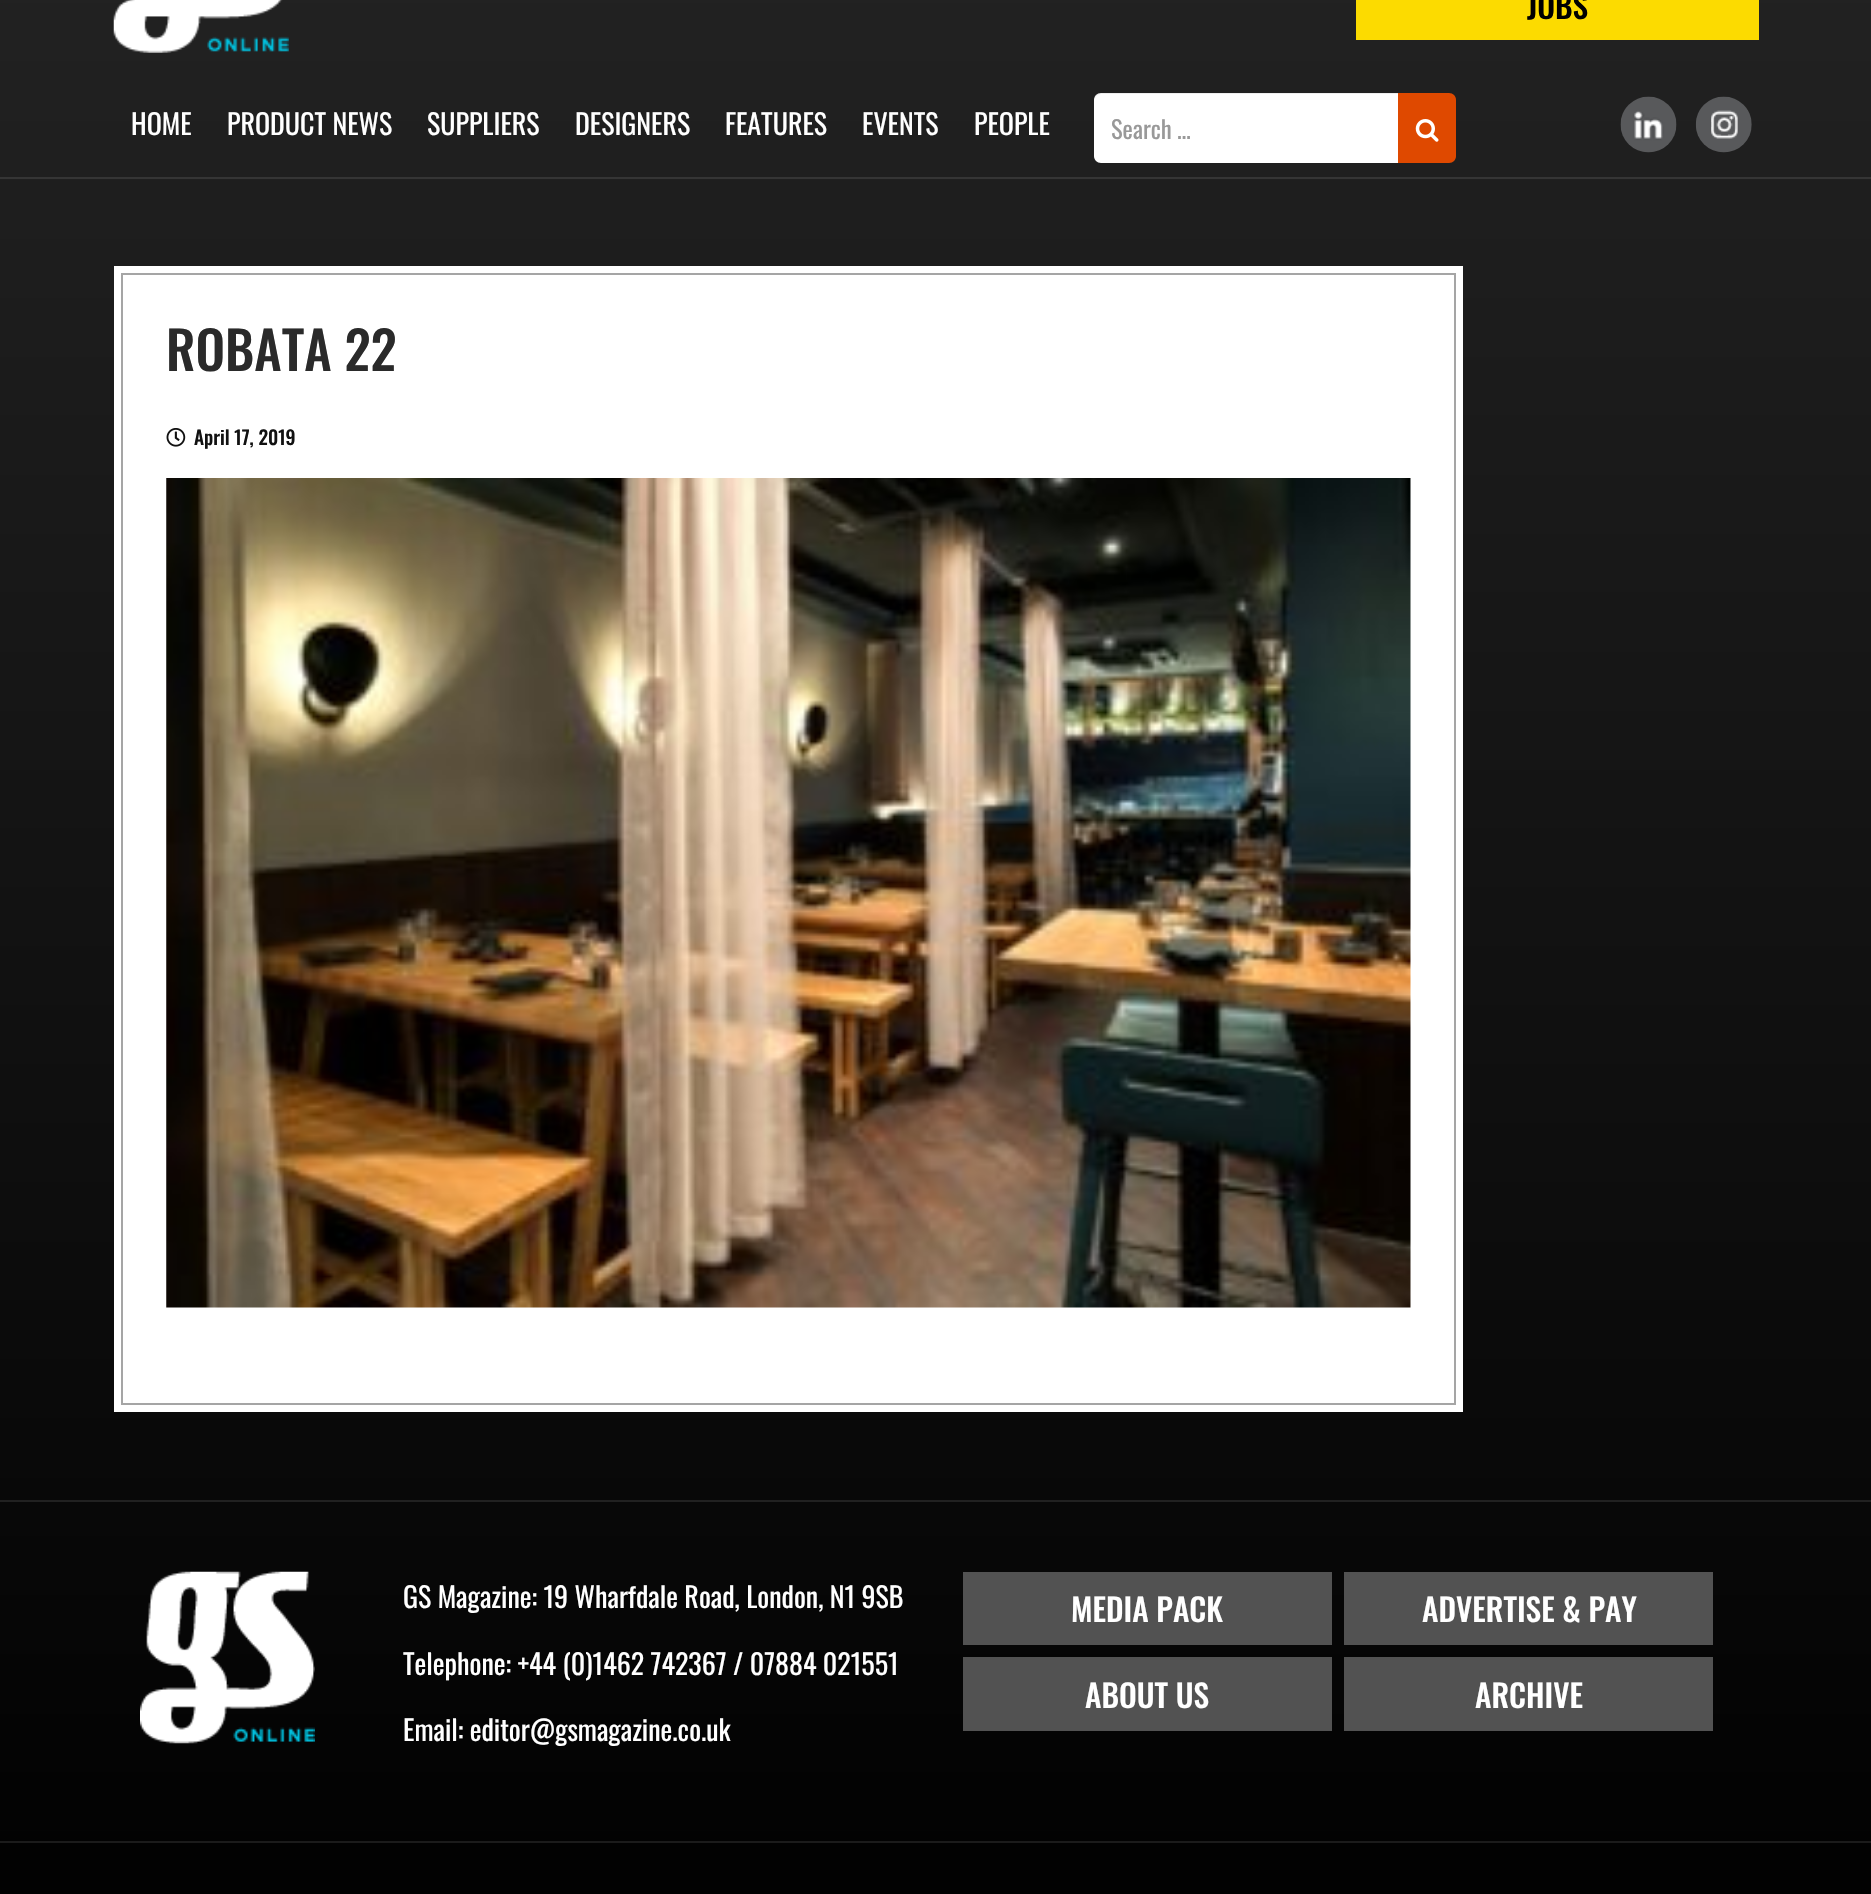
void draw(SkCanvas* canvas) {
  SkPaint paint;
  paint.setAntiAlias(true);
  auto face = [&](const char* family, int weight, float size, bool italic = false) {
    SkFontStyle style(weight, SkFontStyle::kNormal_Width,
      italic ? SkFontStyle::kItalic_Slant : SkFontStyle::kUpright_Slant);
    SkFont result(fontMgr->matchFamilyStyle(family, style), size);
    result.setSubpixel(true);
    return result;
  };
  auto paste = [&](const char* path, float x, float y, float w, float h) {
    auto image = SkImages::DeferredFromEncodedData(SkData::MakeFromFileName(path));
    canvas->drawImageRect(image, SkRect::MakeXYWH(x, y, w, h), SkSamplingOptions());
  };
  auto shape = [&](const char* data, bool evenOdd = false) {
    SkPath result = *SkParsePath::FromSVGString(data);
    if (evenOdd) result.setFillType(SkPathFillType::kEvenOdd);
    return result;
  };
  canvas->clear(0xffffffff);
  {
    const SkColor colors[] = {0xff000000, 0xff242424};
    const float stops[] = {0, 1};
    const SkPoint ends[] = {{936, 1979}, {936, -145}};
    paint.setShader(SkGradientShader::MakeLinear(ends, colors, stops, 2, SkTileMode::kClamp));
    paint.setAlpha(255);
  }
  canvas->drawRect(SkRect::MakeXYWH(0, 0, 1871, 1894), paint);
  paste("img/1.png", 113, 0, 176, 53);
  paint.setShader(nullptr);
  paint.setColor(0xfffcdb00);
  canvas->drawRect(SkRect::MakeXYWH(1356, 0, 403, 40), paint);
  paint.setColor(0xff353535);
  canvas->drawRect(SkRect::MakeXYWH(0, 177, 1871, 2), paint);
  paint.setColor(0xffffffff);
  canvas->drawPath(shape("M1101 93H1400V163H1101C1097 163 1094 160 1094 156V100C1094 96 1097 93 1101 93Z"), paint);
  paint.setColor(0x12000000);
  canvas->drawPath(shape("M1101 94H1400V93H1101C1096 93 1094 98 1094 102C1094 98 1097 94 1101 94Z"), paint);
  paint.setColor(0xffdf4900);
  canvas->drawPath(shape("M1398 93H1449C1453 93 1456 96 1456 100V156C1456 160 1453 163 1449 163H1398Z"), paint);
  paste("img/2.png", 1415, 119, 24, 23);
  paste("img/3.png", 1620, 96, 57, 57);
  paste("img/4.png", 1695, 96, 57, 57);
  paint.setColor(0xffffffff);
  canvas->drawRect(SkRect::MakeXYWH(114, 266, 1349, 1146), paint);
  paste("img/5.png", 166, 428, 20, 19);
  paste("img/6.png", 166, 478, 1245, 830);
  paint.setStroke(true);
  paint.setStrokeWidth(2);
  paint.setColor(0xffa5a5a5);
  canvas->drawRect(SkRect::MakeXYWH(122, 274, 1333, 1130), paint);
  paint.setStroke(false);
  paint.setColor(0xff212121);
  canvas->drawRect(SkRect::MakeXYWH(0, 1500, 1871, 2), paint);
  paint.setColor(0xff1b1b1b);
  canvas->drawRect(SkRect::MakeXYWH(0, 1841, 1871, 2), paint);
  paste("img/7.png", 140, 1571, 175, 173);
  {
    const struct { float x, y, w, h; SkColor color; } items[] = {
      {963, 1572, 369, 73, 0xff525252},
      {1344, 1572, 369, 73, 0xff525252},
      {963, 1657, 369, 74, 0xff525252},
      {1344, 1657, 369, 74, 0xff525252},
    };
    for (auto [x, y, w, h, color] : items) {
      paint.setColor(color);
      canvas->drawRect(SkRect::MakeXYWH(x, y, w, h), paint);
    }
  }
  auto f0 = face("Oswald", 500, 31.5f);
  paint.setColor(0xff000000);
  canvas->drawString("JOBS", 1527, 19, f0, paint);
  auto f1 = face("Oswald", 400, 28);
  paint.setColor(0xffffffff);
  {
    const struct { const char* s; float x, y; } items[] = {
      {"HOME", 131, 135},
      {"PRODUCT NEWS", 227, 135},
      {"SUPPLIERS", 427, 135},
      {"DESIGNERS", 575, 135},
      {"FEATURES", 725, 135},
      {"EVENTS", 862, 135},
      {"PEOPLE", 974, 135},
    };
    for (auto [s, x, y] : items) {
      canvas->drawString(s, x, y, f1, paint);
    }
  }
  auto f2 = face("Oswald", 400, 24.5f);
  paint.setColor(0xff999999);
  canvas->drawString("Search …", 1111, 139, f2, paint);
  auto f3 = face("Oswald", 500, 52.5f);
  paint.setColor(0xff2a2a2a);
  canvas->drawString("ROBATA 22", 166, 371, f3, paint);
  auto f4 = face("Oswald", 500, 19.25f);
  paint.setColor(0xff111111);
  canvas->drawString("April 17, 2019", 194, 445, f4, paint);
  paint.setColor(0xffffffff);
  {
    const struct { const char* s; float x, y; } items[] = {
      {"GS Magazine: 19 Wharfdale Road, London, N1 9SB", 403, 1608},
      {"Telephone: +44 (0)1462 742367 / 07884 021551", 403, 1675},
      {"Email: editor@gsmagazine.co.uk", 403, 1741},
    };
    for (auto [s, x, y] : items) {
      canvas->drawString(s, x, y, f1, paint);
    }
  }
  {
    const struct { const char* s; float x, y; } items[] = {
      {"MEDIA PACK", 1071, 1622},
      {"ADVERTISE & PAY", 1422, 1622},
      {"ABOUT US", 1085, 1708},
      {"ARCHIVE", 1475, 1708},
    };
    for (auto [s, x, y] : items) {
      canvas->drawString(s, x, y, f0, paint);
    }
  }
}
